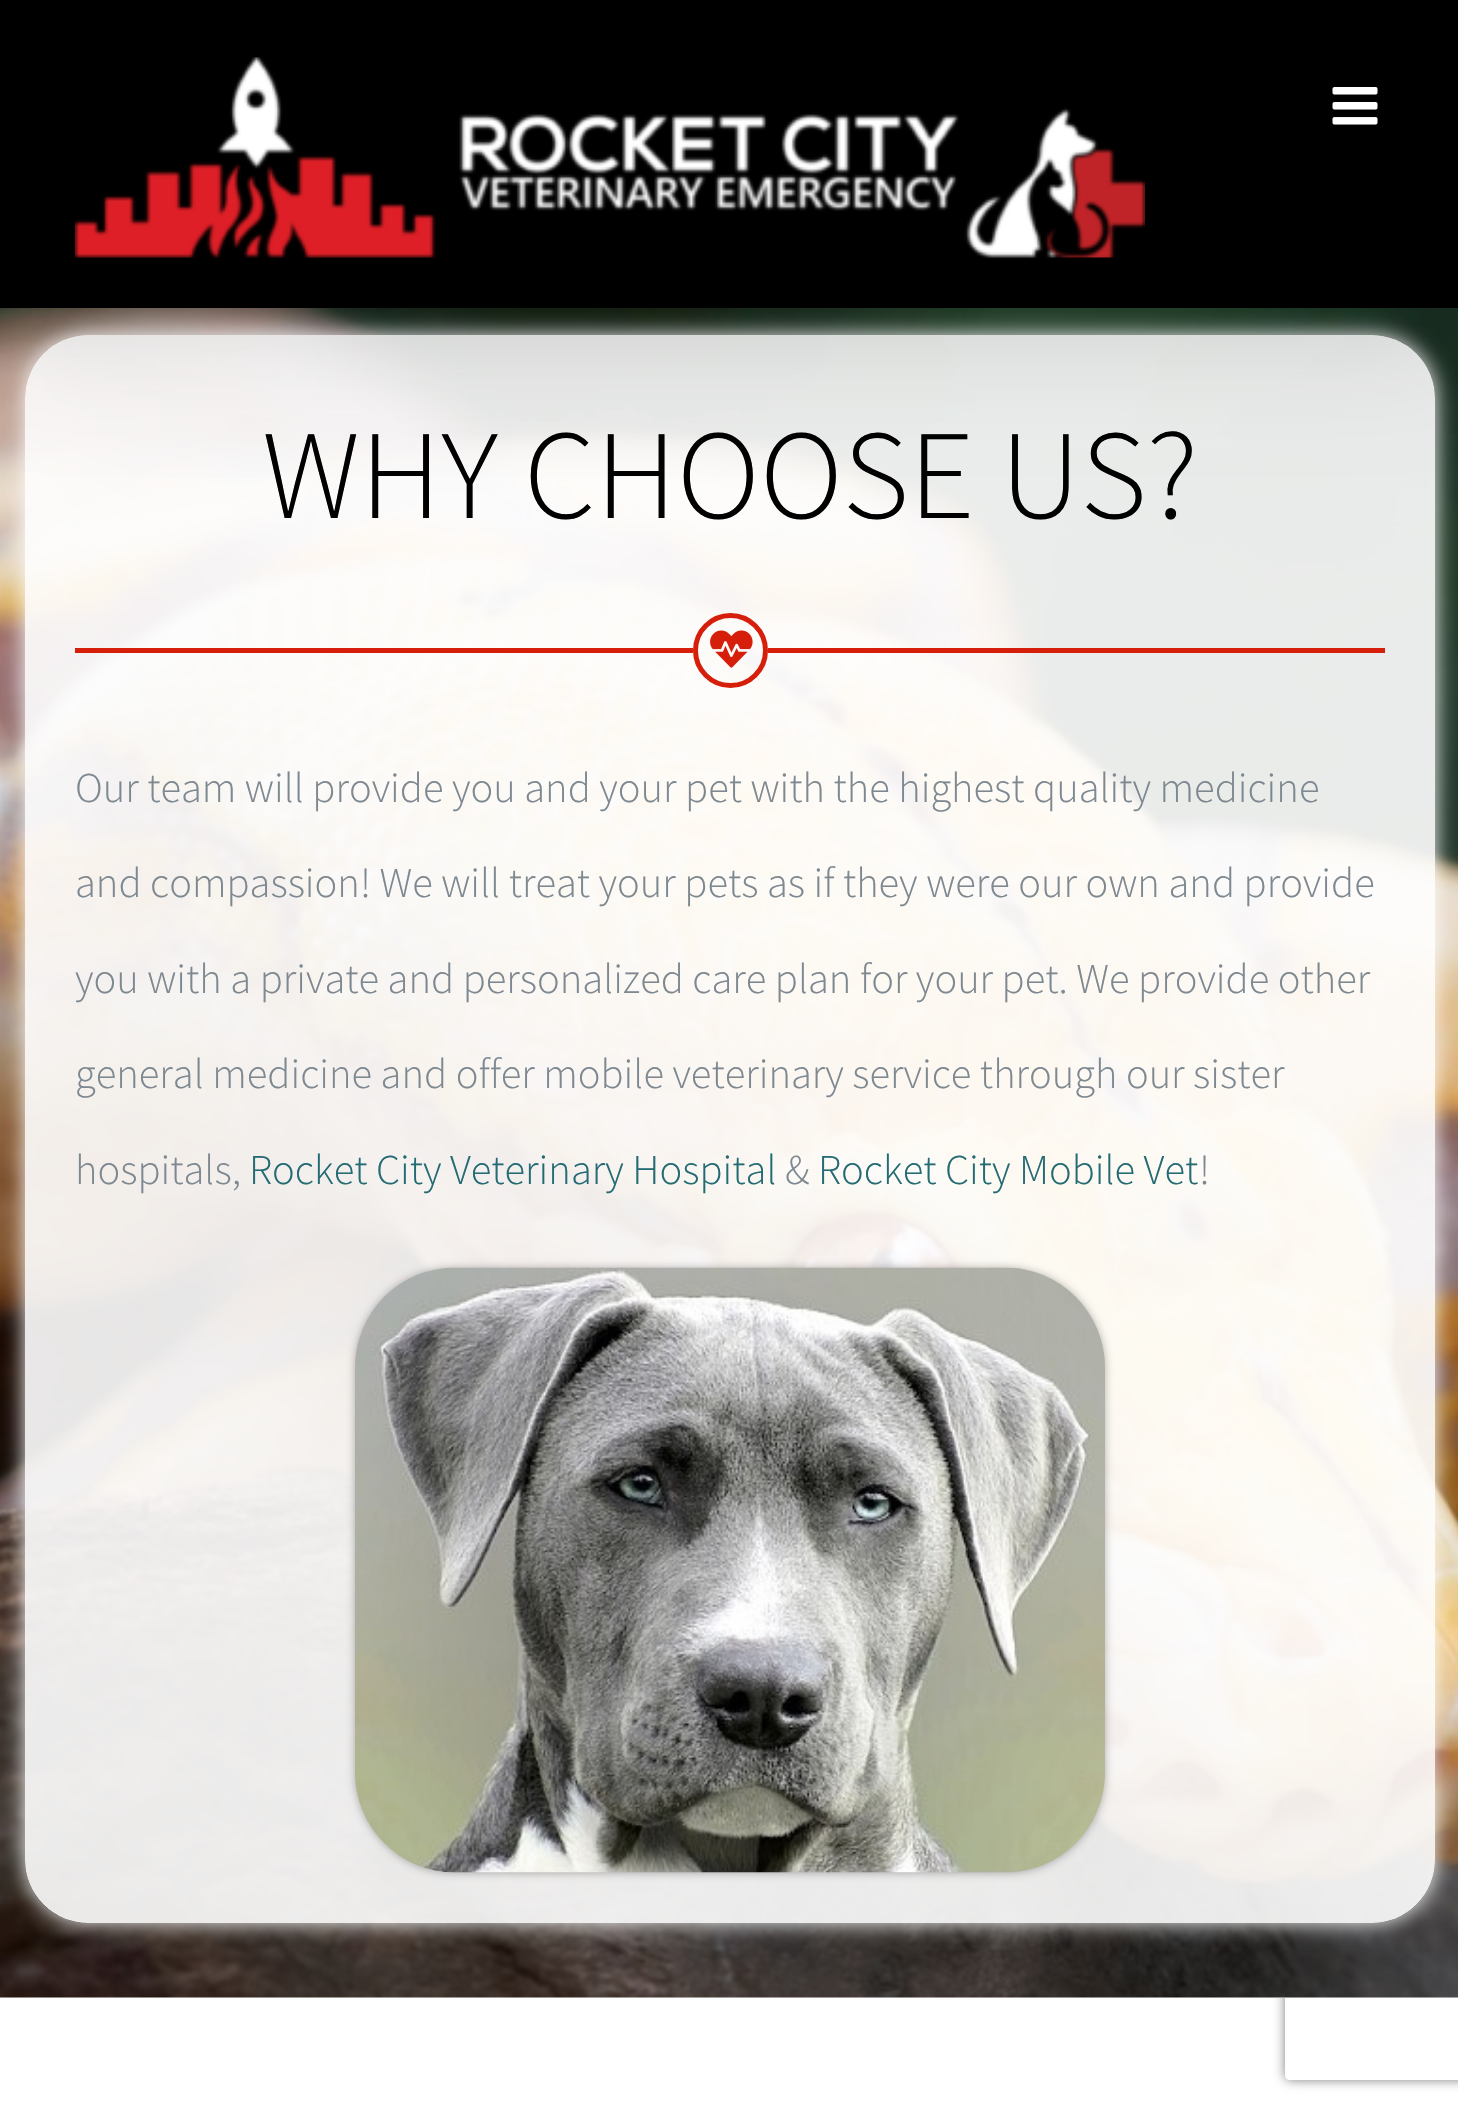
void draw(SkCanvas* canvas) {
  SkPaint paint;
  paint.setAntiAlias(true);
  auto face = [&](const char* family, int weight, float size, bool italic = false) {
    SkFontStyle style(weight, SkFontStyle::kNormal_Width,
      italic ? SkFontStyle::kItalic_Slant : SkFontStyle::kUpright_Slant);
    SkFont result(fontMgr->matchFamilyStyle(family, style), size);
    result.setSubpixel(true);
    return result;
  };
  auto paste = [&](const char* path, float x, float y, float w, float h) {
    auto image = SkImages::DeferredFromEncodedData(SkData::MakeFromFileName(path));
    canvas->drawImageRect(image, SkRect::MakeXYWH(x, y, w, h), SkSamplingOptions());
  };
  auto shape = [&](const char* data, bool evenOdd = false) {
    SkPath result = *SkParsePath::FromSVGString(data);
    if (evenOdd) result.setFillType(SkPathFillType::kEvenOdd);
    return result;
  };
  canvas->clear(0xffffffff);
  canvas->save();
  canvas->clipPath(shape("M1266 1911H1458V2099H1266ZM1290 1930H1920C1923 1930 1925 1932 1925 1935V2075C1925 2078 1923 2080 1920 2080H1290C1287 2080 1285 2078 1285 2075V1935C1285 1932 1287 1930 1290 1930Z", true), true);
  paint.setColor(0xff808080);
  paint.setMaskFilter(SkMaskFilter::MakeBlur(kNormal_SkBlurStyle, 6));
  canvas->drawRoundRect(SkRect::MakeXYWH(1285, 1930, 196, 150), 5, 5, paint);
  paint.setMaskFilter(nullptr);
  canvas->restore();
  paint.setColor(0xffffffff);
  canvas->drawRect(SkRect::MakeXYWH(1273, 1997, 12, 1), paint);
  paste("img/3.png", 0, 308, 1458, 1690);
  canvas->save();
  canvas->clipPath(shape("M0 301H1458V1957H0ZM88 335H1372C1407 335 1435 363 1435 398V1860C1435 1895 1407 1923 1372 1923H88C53 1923 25 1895 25 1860V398C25 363 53 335 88 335Z", true), true);
  paint.setMaskFilter(SkMaskFilter::MakeBlur(kNormal_SkBlurStyle, 11));
  canvas->drawRoundRect(SkRect::MakeXYWH(25, 335, 1410, 1588), 63, 63, paint);
  paint.setMaskFilter(nullptr);
  canvas->restore();
  paint.setColor(0xe6ffffff);
  canvas->drawRoundRect(SkRect::MakeXYWH(25, 335, 1410, 1588), 63, 63, paint);
  paint.setColor(0x24000000);
  paint.setMaskFilter(SkMaskFilter::MakeBlur(kNormal_SkBlurStyle, 62.5f));
  canvas->drawRect(SkRect::MakeXYWH(5, 30, 1450, 298), paint);
  paint.setMaskFilter(nullptr);
  paint.setColor(0xff000000);
  canvas->drawRect(SkRect::MakeXYWH(0, 0, 1458, 308), paint);
  paste("img/1.png", 75, 57, 1070, 201);
  paste("img/2.png", 1332, 87, 46, 38);
  paint.setColor(0xffd61f0a);
  canvas->drawRect(SkRect::MakeXYWH(75, 648, 618, 5), paint);
  paint.setStroke(true);
  paint.setStrokeWidth(5);
  canvas->drawCircle(730.5f, 650.5f, 35, paint);
  paste("img/4.png", 710, 630, 43, 38);
  paint.setStroke(false);
  canvas->drawRect(SkRect::MakeXYWH(768, 648, 617, 5), paint);
  paint.setColor(0x4d000000);
  paint.setMaskFilter(SkMaskFilter::MakeBlur(kNormal_SkBlurStyle, 4));
  canvas->drawRoundRect(SkRect::MakeXYWH(355, 1268, 750, 605), 100, 100, paint);
  paint.setMaskFilter(nullptr);
  paste("img/5.png", 355, 1267, 750, 606);
  auto f0 = face("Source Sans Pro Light", 300, 127.25f);
  paint.setColor(0xff000000);
  canvas->drawString("WHY CHOOSE US?", 262, 518, f0, paint);
  auto f1 = face("Source Sans Pro Light", 300, 42.5f);
  paint.setColor(0xff7e8890);
  {
    const struct { const char* s; float x, y; } items[] = {
      {"Our team will provide you and your pet with the highest quality medicine", 75, 802},
      {"and compassion! We will treat your pets as if they were our own and provide", 75, 897},
      {"you with a private and personalized care plan for your pet. We provide other", 75, 993},
      {"general medicine and offer mobile veterinary service through our sister", 75, 1088},
      {"hospitals,", 75, 1184},
    };
    for (auto [s, x, y] : items) {
      canvas->drawString(s, x, y, f1, paint);
    }
  }
  paint.setColor(0xff246b74);
  canvas->drawString("Rocket City Veterinary Hospital", 249, 1184, f1, paint);
  paint.setColor(0xff7e8890);
  canvas->drawString("&", 785, 1184, f1, paint);
  paint.setColor(0xff246b74);
  canvas->drawString("Rocket City Mobile Vet", 818, 1184, f1, paint);
  paint.setColor(0xff7e8890);
  canvas->drawString("!", 1199, 1184, f1, paint);
}
